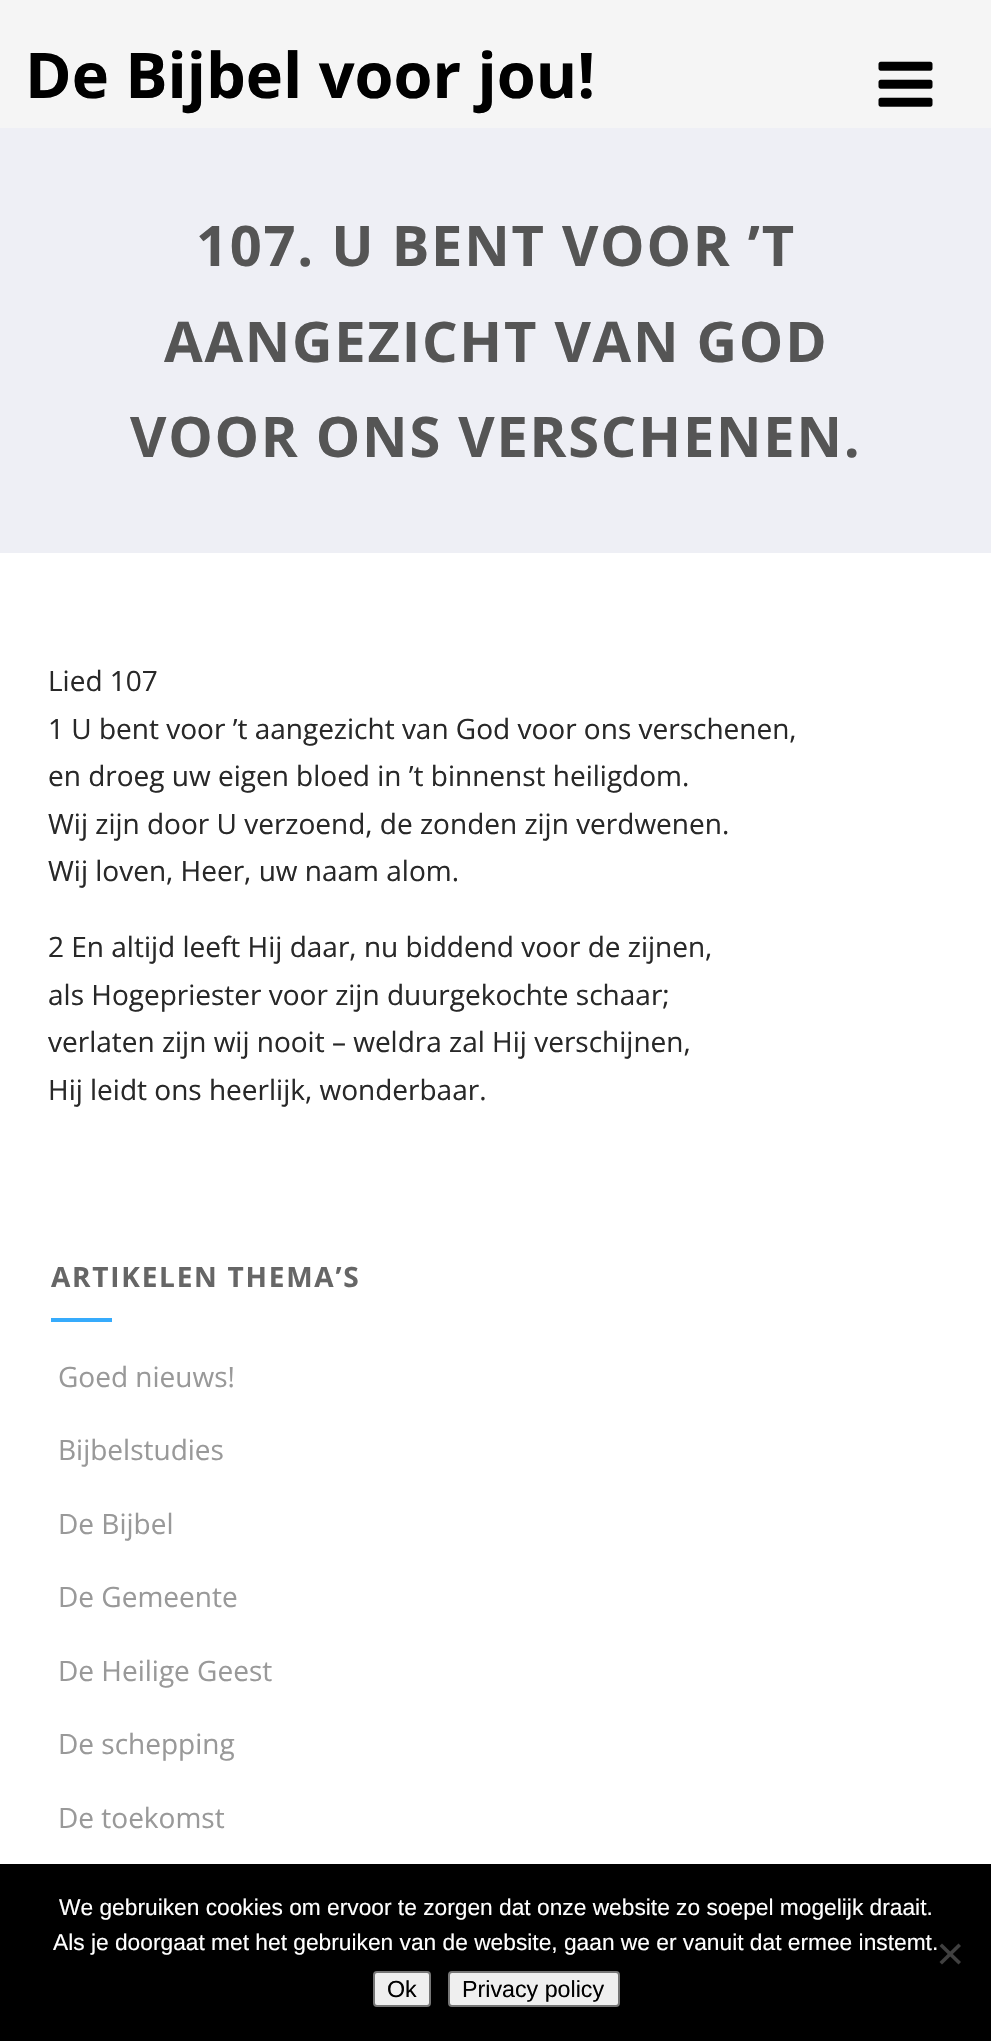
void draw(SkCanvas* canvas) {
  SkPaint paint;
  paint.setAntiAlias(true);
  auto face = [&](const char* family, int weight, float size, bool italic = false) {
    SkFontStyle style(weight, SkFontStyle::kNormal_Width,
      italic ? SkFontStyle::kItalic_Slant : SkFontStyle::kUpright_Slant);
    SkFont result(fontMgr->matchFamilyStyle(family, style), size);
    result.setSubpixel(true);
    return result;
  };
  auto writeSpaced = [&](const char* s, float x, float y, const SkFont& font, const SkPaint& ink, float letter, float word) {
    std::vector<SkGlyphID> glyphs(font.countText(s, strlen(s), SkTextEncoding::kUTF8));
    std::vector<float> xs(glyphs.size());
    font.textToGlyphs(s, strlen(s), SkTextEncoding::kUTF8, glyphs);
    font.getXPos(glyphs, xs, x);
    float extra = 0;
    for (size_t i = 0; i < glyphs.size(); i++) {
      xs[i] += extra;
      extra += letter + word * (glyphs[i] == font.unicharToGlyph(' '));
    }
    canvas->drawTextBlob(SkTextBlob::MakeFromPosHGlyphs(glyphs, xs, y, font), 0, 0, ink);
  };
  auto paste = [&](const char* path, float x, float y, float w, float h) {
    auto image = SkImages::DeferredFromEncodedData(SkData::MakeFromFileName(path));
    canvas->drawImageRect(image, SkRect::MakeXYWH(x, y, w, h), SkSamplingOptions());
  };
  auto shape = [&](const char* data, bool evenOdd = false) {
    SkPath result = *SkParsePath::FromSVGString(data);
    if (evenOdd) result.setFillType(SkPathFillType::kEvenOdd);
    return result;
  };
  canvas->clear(0xffffffff);
  paint.setColor(0xfff5f5f5);
  canvas->drawRect(SkRect::MakeXYWH(0, 0, 991, 128), paint);
  paste("img/1.png", 878, 61, 55, 46);
  {
    const struct { float x, y, w, h; SkColor color; } items[] = {
      {0, 128, 991, 425, 0xffeeeff5},
      {51, 1318, 61, 4, 0xff36abfc},
      {0, 1864, 991, 177, 0xff000000},
    };
    for (auto [x, y, w, h, color] : items) {
      paint.setColor(color);
      canvas->drawRect(SkRect::MakeXYWH(x, y, w, h), paint);
    }
  }
  paint.setColor(0xff404040);
  canvas->drawPath(shape("M958.5 1943.5L961 1946L942 1964.5L939.5 1962Z"), paint);
  canvas->drawPath(shape("M939.5 1946L942 1943.5L961 1962L958.5 1964.5Z"), paint);
  paint.setColor(0xffefefef);
  canvas->drawRoundRect(SkRect::MakeXYWH(374, 1972, 56, 34), 3, 3, paint);
  paint.setStroke(true);
  paint.setStrokeWidth(2);
  paint.setColor(0xff767676);
  canvas->drawRoundRect(SkRect::MakeXYWH(374, 1972, 56, 34), 3, 3, paint);
  paint.setStroke(false);
  paint.setColor(0xffefefef);
  canvas->drawRoundRect(SkRect::MakeXYWH(449, 1972, 170, 34), 3, 3, paint);
  paint.setStroke(true);
  paint.setColor(0xff767676);
  canvas->drawRoundRect(SkRect::MakeXYWH(449, 1972, 170, 34), 3, 3, paint);
  auto f0 = face("Open Sans", 700, 63);
  paint.setStroke(false);
  paint.setColor(0xff000000);
  canvas->drawString("De Bijbel voor jou!", 25, 98, f0, paint);
  auto f1 = face("Open Sans", 700, 56);
  paint.setColor(0xff555555);
  {
    const struct { const char* s; float x, y; } items[] = {
      {"107. U BENT VOOR ’T", 196, 266},
      {"AANGEZICHT VAN GOD", 164, 362},
      {"VOOR ONS VERSCHENEN.", 130, 457},
    };
    for (auto [s, x, y] : items) {
      writeSpaced(s, x, y, f1, paint, 1.75f, 0);
    }
  }
  auto f2 = face("Open Sans", 400, 28);
  paint.setColor(0xff282828);
  {
    const struct { const char* s; float x, y; } items[] = {
      {"Lied 107", 48, 691},
      {"1 U bent voor ’t aangezicht van God voor ons verschenen,", 48, 739},
      {"en droeg uw eigen bloed in ’t binnenst heiligdom.", 48, 786},
      {"Wij zijn door U verzoend, de zonden zijn verdwenen.", 48, 834},
      {"Wij loven, Heer, uw naam alom.", 48, 881},
      {"2 En altijd leeft Hij daar, nu biddend voor de zijnen,", 48, 957},
      {"als Hogepriester voor zijn duurgekochte schaar;", 48, 1005},
      {"verlaten zijn wij nooit – weldra zal Hij verschijnen,", 48, 1052},
      {"Hij leidt ons heerlijk, wonderbaar.", 48, 1100},
    };
    for (auto [s, x, y] : items) {
      canvas->drawString(s, x, y, f2, paint);
    }
  }
  auto f3 = face("Open Sans", 700, 28);
  paint.setColor(0xff666666);
  writeSpaced("ARTIKELEN THEMA’S", 51, 1287, f3, paint, 1.75f, 0);
  paint.setColor(0xff999999);
  {
    const struct { const char* s; float x, y; } items[] = {
      {"Goed nieuws!", 58, 1387},
      {"Bijbelstudies", 58, 1460},
      {"De Bijbel", 58, 1534},
      {"De Gemeente", 58, 1607},
      {"De Heilige Geest", 58, 1681},
      {"De schepping", 58, 1754},
      {"De toekomst", 58, 1828},
    };
    for (auto [s, x, y] : items) {
      canvas->drawString(s, x, y, f2, paint);
    }
  }
  auto f4 = face("Liberation Sans", 400, 22.75f);
  paint.setColor(0xffffffff);
  canvas->drawString("We gebruiken cookies om ervoor te zorgen dat onze website zo soepel mogelijk draait.", 59, 1915, f4, paint);
  canvas->drawString("Als je doorgaat met het gebruiken van de website, gaan we er vanuit dat ermee instemt.", 53, 1950, f4, paint);
  auto f5 = face("Liberation Sans", 400, 23.25f);
  paint.setColor(0xff000000);
  canvas->drawString("Ok", 387, 1997, f5, paint);
  canvas->drawString("Privacy policy", 462, 1997, f5, paint);
}
